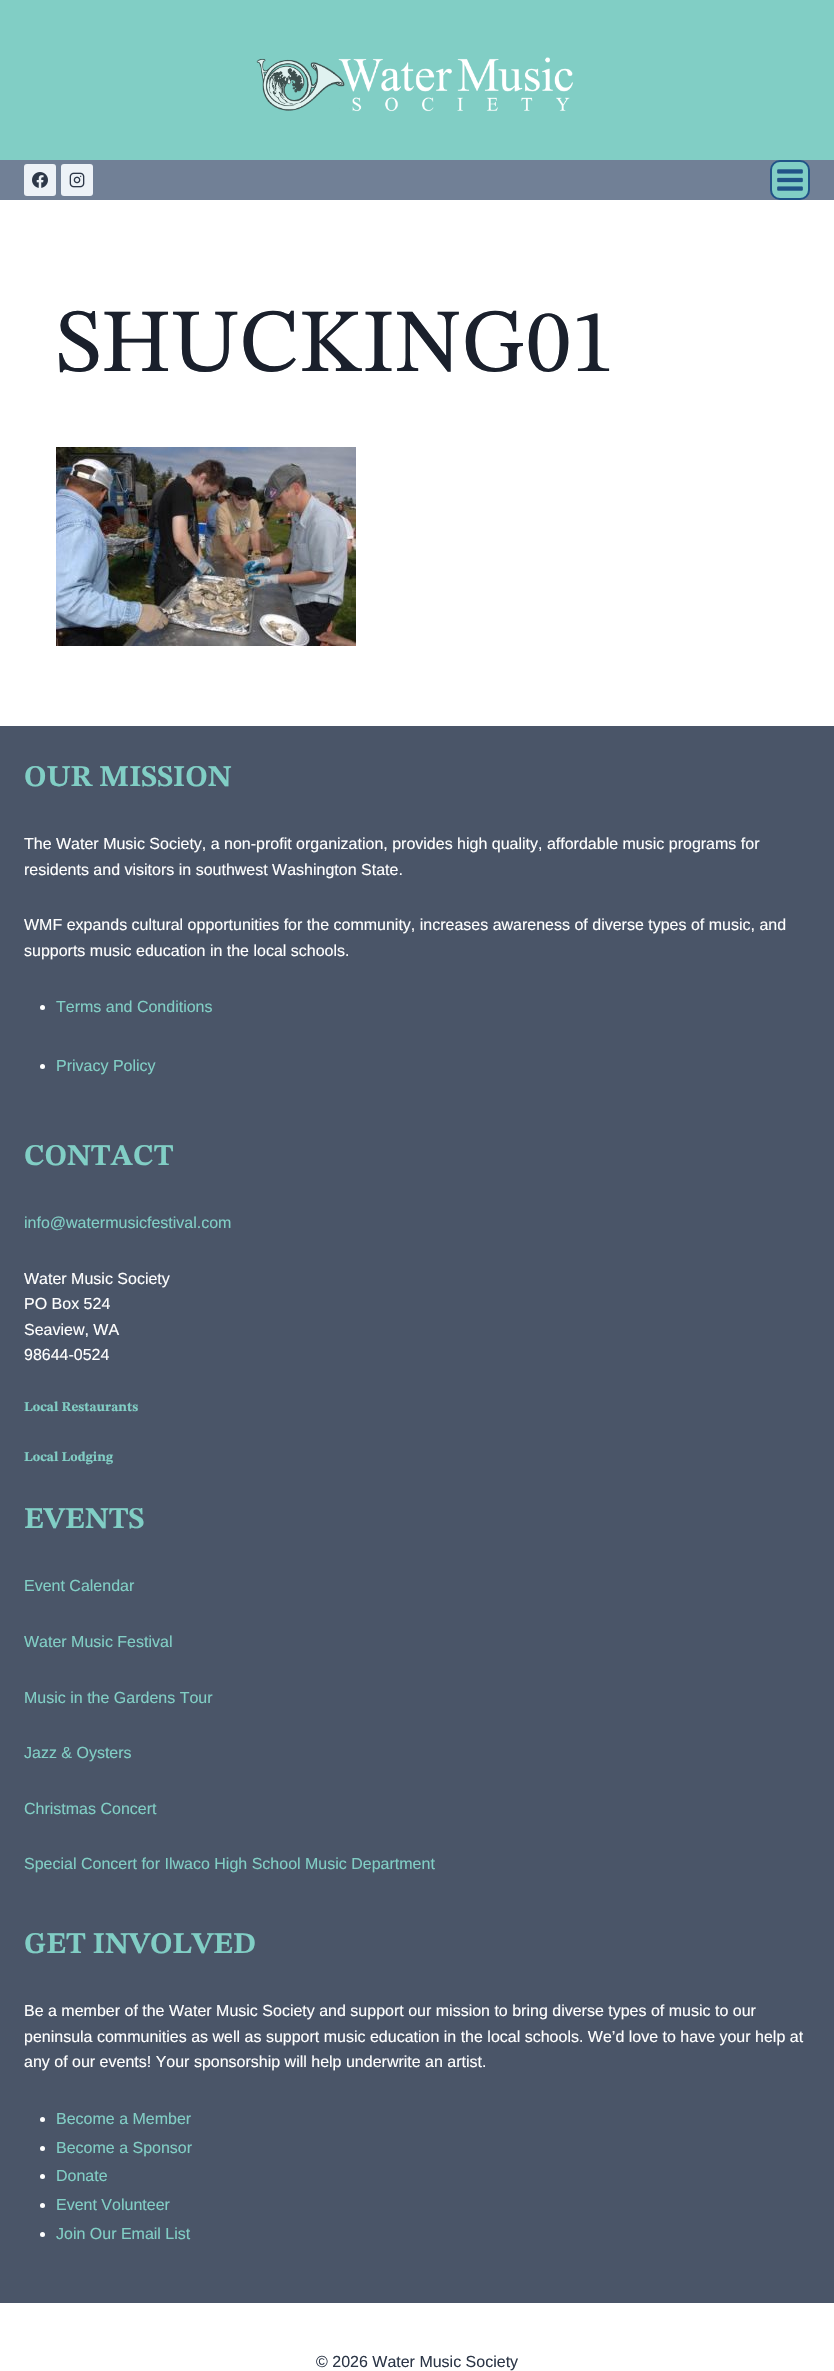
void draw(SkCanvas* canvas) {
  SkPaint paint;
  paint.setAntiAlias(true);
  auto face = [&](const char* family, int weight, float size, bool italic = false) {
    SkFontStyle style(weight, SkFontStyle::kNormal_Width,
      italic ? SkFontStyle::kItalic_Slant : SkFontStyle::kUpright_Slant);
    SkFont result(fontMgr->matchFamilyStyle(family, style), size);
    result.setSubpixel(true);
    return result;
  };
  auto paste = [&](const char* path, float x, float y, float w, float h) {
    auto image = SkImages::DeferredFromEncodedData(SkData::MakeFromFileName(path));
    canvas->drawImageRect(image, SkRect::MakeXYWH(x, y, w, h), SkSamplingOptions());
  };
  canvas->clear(0xffffffff);
  paint.setColor(0xff81cec5);
  canvas->drawRect(SkRect::MakeXYWH(0, 0, 834, 160), paint);
  paste("img/1.png", 256, 57, 317, 55);
  paint.setColor(0xff718096);
  canvas->drawRect(SkRect::MakeXYWH(0, 160, 834, 40), paint);
  paint.setColor(0xffedf2f7);
  canvas->drawRoundRect(SkRect::MakeXYWH(24, 164, 32, 32), 3, 3, paint);
  paste("img/2.png", 32, 172, 16, 16);
  canvas->drawRoundRect(SkRect::MakeXYWH(61, 164, 32, 32), 3, 3, paint);
  paste("img/3.png", 69, 172, 16, 16);
  paint.setColor(0xff81cec5);
  canvas->drawRoundRect(SkRect::MakeXYWH(771, 161, 38, 38), 9, 9, paint);
  paint.setStroke(true);
  paint.setStrokeWidth(2);
  paint.setColor(0xff215387);
  canvas->drawRoundRect(SkRect::MakeXYWH(771, 161, 38, 38), 9, 9, paint);
  paste("img/4.png", 777, 169, 26, 22);
  paste("img/5.png", 56, 447, 300, 199);
  paint.setStroke(false);
  paint.setColor(0xff4a5568);
  canvas->drawRect(SkRect::MakeXYWH(0, 726, 834, 1577), paint);
  paint.setColor(0xffffffff);
  canvas->drawCircle(42.5f, 1007.5f, 2.5f, paint);
  canvas->drawCircle(42.5f, 1066.5f, 2.5f, paint);
  canvas->drawCircle(42.5f, 2119.5f, 2.5f, paint);
  canvas->drawCircle(42.5f, 2148.5f, 2.5f, paint);
  canvas->drawCircle(42.5f, 2176.5f, 2.5f, paint);
  canvas->drawCircle(42.5f, 2205.5f, 2.5f, paint);
  canvas->drawCircle(42.5f, 2234.5f, 2.5f, paint);
  auto f0 = face("STIX Two Text", 400, 90);
  paint.setColor(0xff1a202c);
  canvas->drawString("SHUCKING01", 56, 371, f0, paint);
  auto f1 = face("STIX Two Text", 700, 30);
  paint.setColor(0xff81cec5);
  canvas->drawString("OUR MISSION", 24, 786, f1, paint);
  auto f2 = face("Liberation Sans", 400, 16);
  paint.setColor(0xffffffff);
  {
    const struct { const char* s; float x, y; } items[] = {
      {"The Water Music Society, a non-profit organization, provides high quality, affordable music programs for", 24, 849},
      {"residents and visitors in southwest Washington State.", 24, 875},
      {"WMF expands cultural opportunities for the community, increases awareness of diverse types of music, and", 24, 930},
      {"supports music education in the local schools.", 24, 956},
    };
    for (auto [s, x, y] : items) {
      canvas->drawString(s, x, y, f2, paint);
    }
  }
  paint.setColor(0xff81cec5);
  canvas->drawString("Terms and Conditions", 56, 1012, f2, paint);
  canvas->drawString("Privacy Policy", 56, 1071, f2, paint);
  canvas->drawString("CONTACT", 24, 1165, f1, paint);
  canvas->drawString("info@watermusicfestival.com", 24, 1228, f2, paint);
  paint.setColor(0xffffffff);
  {
    const struct { const char* s; float x, y; } items[] = {
      {"Water Music Society", 24, 1284},
      {"PO Box 524", 24, 1309},
      {"Seaview, WA", 24, 1335},
      {"98644-0524", 24, 1360},
    };
    for (auto [s, x, y] : items) {
      canvas->drawString(s, x, y, f2, paint);
    }
  }
  auto f3 = face("STIX Two Text", 700, 13.5f);
  paint.setColor(0xff81cec5);
  canvas->drawString("Local Restaurants", 24, 1411, f3, paint);
  canvas->drawString("Local Lodging", 24, 1461, f3, paint);
  canvas->drawString("EVENTS", 24, 1528, f1, paint);
  {
    const struct { const char* s; float x, y; } items[] = {
      {"Event Calendar", 24, 1591},
      {"Water Music Festival", 24, 1647},
      {"Music in the Gardens Tour", 24, 1703},
      {"Jazz & Oysters", 24, 1758},
      {"Christmas Concert", 24, 1814},
      {"Special Concert for Ilwaco High School Music Department", 24, 1869},
    };
    for (auto [s, x, y] : items) {
      canvas->drawString(s, x, y, f2, paint);
    }
  }
  canvas->drawString("GET INVOLVED", 24, 1953, f1, paint);
  paint.setColor(0xffffffff);
  {
    const struct { const char* s; float x, y; } items[] = {
      {"Be a member of the Water Music Society and support our mission to bring diverse types of music to our", 24, 2016},
      {"peninsula communities as well as support music education in the local schools. We’d love to have your help at", 24, 2042},
      {"any of our events! Your sponsorship will help underwrite an artist.", 24, 2067},
    };
    for (auto [s, x, y] : items) {
      canvas->drawString(s, x, y, f2, paint);
    }
  }
  paint.setColor(0xff81cec5);
  {
    const struct { const char* s; float x, y; } items[] = {
      {"Become a Member", 56, 2124},
      {"Become a Sponsor", 56, 2153},
      {"Donate", 56, 2181},
      {"Event Volunteer", 56, 2210},
      {"Join Our Email List", 56, 2239},
    };
    for (auto [s, x, y] : items) {
      canvas->drawString(s, x, y, f2, paint);
    }
  }
  paint.setColor(0xff2d3748);
  canvas->drawString("© 2026 Water Music Society", 316, 2367, f2, paint);
}
